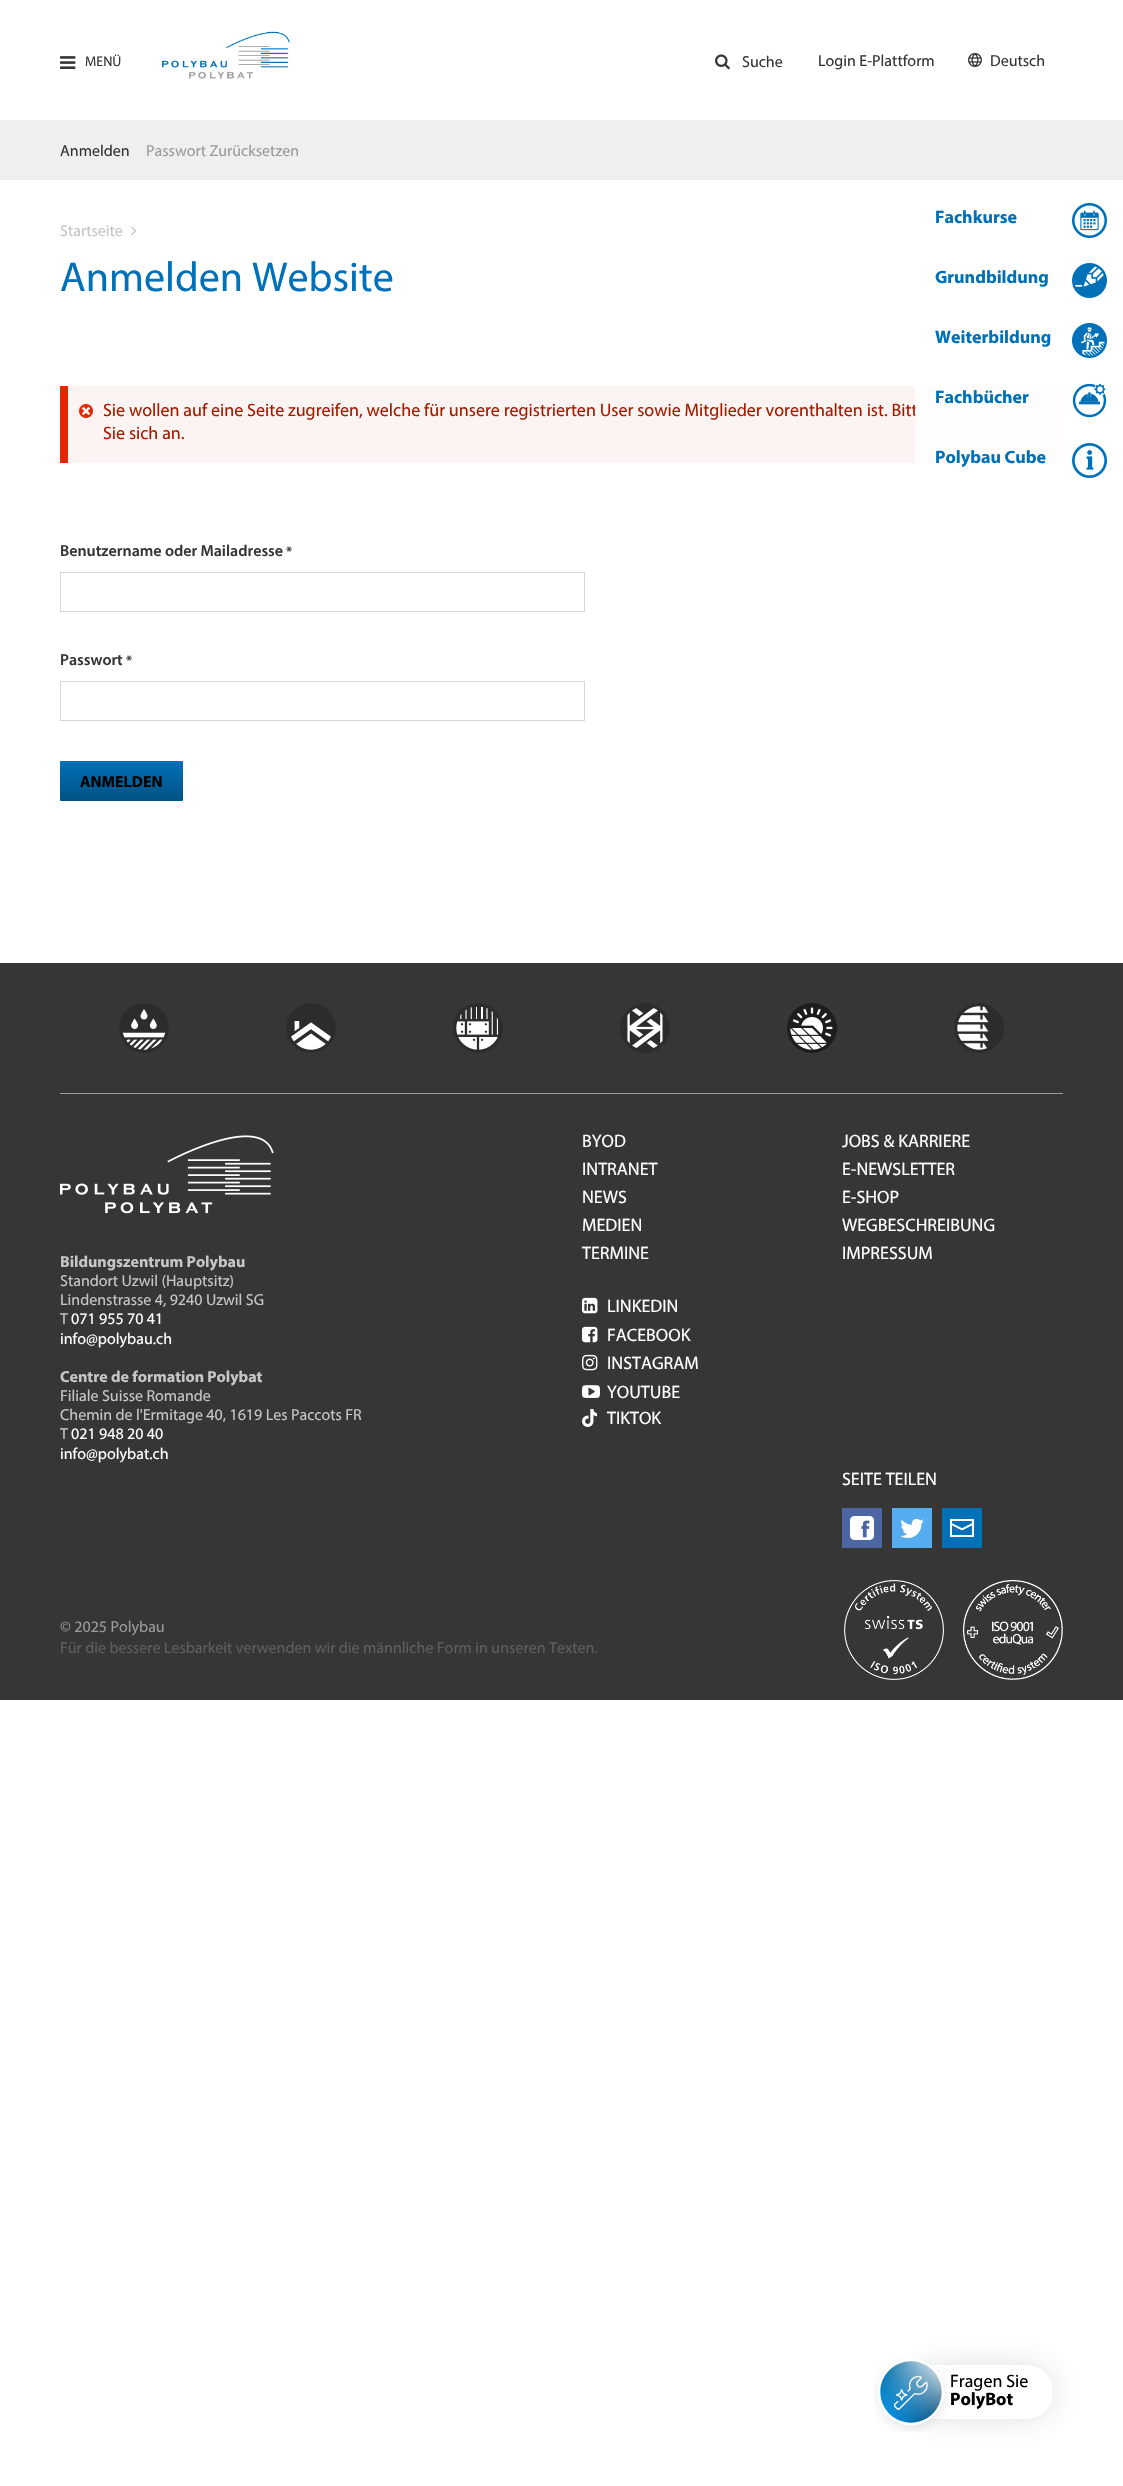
void draw(SkCanvas* canvas) {
  SkPaint paint;
  paint.setAntiAlias(true);
  auto face = [&](const char* family, int weight, float size, bool italic = false) {
    SkFontStyle style(weight, SkFontStyle::kNormal_Width,
      italic ? SkFontStyle::kItalic_Slant : SkFontStyle::kUpright_Slant);
    SkFont result(fontMgr->matchFamilyStyle(family, style), size);
    result.setSubpixel(true);
    return result;
  };
  auto paste = [&](const char* path, float x, float y, float w, float h) {
    auto image = SkImages::DeferredFromEncodedData(SkData::MakeFromFileName(path));
    canvas->drawImageRect(image, SkRect::MakeXYWH(x, y, w, h), SkSamplingOptions());
  };
  auto shape = [&](const char* data, bool evenOdd = false) {
    SkPath result = *SkParsePath::FromSVGString(data);
    if (evenOdd) result.setFillType(SkPathFillType::kEvenOdd);
    return result;
  };
  canvas->clear(0xffffffff);
  paste("img/1.png", 60, 56, 16, 13);
  paste("img/2.png", 162, 31, 128, 48);
  paste("img/3.png", 715, 54, 15, 16);
  paste("img/4.png", 968, 53, 14, 14);
  paint.setColor(0xffefefef);
  canvas->drawRect(SkRect::MakeXYWH(0, 120, 1123, 60), paint);
  paste("img/5.png", 131, 226, 6, 10);
  paste("img/6.png", 1072, 203, 35, 35);
  paste("img/7.png", 1072, 263, 35, 35);
  paste("img/8.png", 1072, 323, 35, 35);
  paste("img/9.png", 1072, 383, 35, 35);
  paste("img/10.png", 1072, 443, 35, 35);
  {
    const struct { float x, y, w, h; SkColor color; } items[] = {
      {60, 386, 8, 77, 0xffe62600},
      {68, 386, 988, 77, 0xfffcf4f2},
      {1056, 386, 7, 77, 0xfffefdfc},
      {915, 430, 141, 33, 0xfffefdfc},
    };
    for (auto [x, y, w, h, color] : items) {
      paint.setColor(color);
      canvas->drawRect(SkRect::MakeXYWH(x, y, w, h), paint);
    }
  }
  paste("img/11.png", 79, 404, 14, 14);
  paint.setStroke(true);
  paint.setStrokeWidth(1);
  paint.setColor(0xffd6d6d6);
  canvas->drawRect(SkRect::MakeXYWH(60.5f, 572.5f, 524, 39), paint);
  canvas->drawRect(SkRect::MakeXYWH(60.5f, 681.5f, 524, 39), paint);
  paint.setStroke(false);
  {
    const SkColor colors[] = {0xff0071b7, 0xff005284};
    const float stops[] = {0, 1};
    const SkPoint ends[] = {{122, 761}, {122, 801}};
    paint.setShader(SkGradientShader::MakeLinear(ends, colors, stops, 2, SkTileMode::kClamp));
    paint.setAlpha(255);
  }
  canvas->drawRoundRect(SkRect::MakeXYWH(60, 761, 123, 40), 1, 1, paint);
  paint.setShader(nullptr);
  paint.setColor(0x2110281f);
  paint.setMaskFilter(SkMaskFilter::MakeBlur(kNormal_SkBlurStyle, 15));
  canvas->drawRoundRect(SkRect::MakeXYWH(912, 2364, 142, 56), 28, 28, paint);
  paint.setMaskFilter(nullptr);
  paint.setColor(0xffffffff);
  canvas->drawPath(shape("M913 2365H1026C1041 2365 1053 2377 1053 2392C1053 2407 1041 2419 1026 2419H913Z"), paint);
  paste("img/12.png", 874, 2358, 74, 74);
  paint.setColor(0xff363636);
  canvas->drawRect(SkRect::MakeXYWH(0, 963, 1123, 737), paint);
  paint.setColor(0xff9c9c9c);
  canvas->drawRect(SkRect::MakeXYWH(60, 1093, 1003, 1), paint);
  paint.setColor(0xff2c2c2c);
  canvas->drawCircle(144, 1028, 25, paint);
  paste("img/13.png", 122, 1009, 44, 41);
  canvas->drawCircle(311, 1028, 25, paint);
  paste("img/14.png", 291, 1021, 40, 29);
  canvas->drawCircle(478, 1028, 25, paint);
  paste("img/15.png", 456, 1007, 42, 43);
  canvas->drawCircle(645, 1028, 25, paint);
  paste("img/16.png", 627, 1008, 36, 40);
  paste("img/17.png", 787, 1003, 50, 50);
  canvas->drawCircle(979, 1028, 25, paint);
  paste("img/18.png", 957, 1006, 32, 44);
  paste("img/19.png", 60, 1135, 214, 79);
  paste("img/20.png", 582, 1297, 16, 17);
  paste("img/21.png", 582, 1326, 16, 17);
  paste("img/22.png", 582, 1354, 16, 17);
  paste("img/23.png", 582, 1385, 18, 13);
  paste("img/24.png", 582, 1409, 15, 18);
  paint.setColor(0xff4c66a4);
  canvas->drawRect(SkRect::MakeXYWH(842, 1508, 40, 40), paint);
  paste("img/25.png", 850, 1516, 24, 24);
  paint.setColor(0xff55acee);
  canvas->drawRect(SkRect::MakeXYWH(892, 1508, 40, 40), paint);
  paste("img/26.png", 900, 1518, 24, 21);
  paint.setColor(0xff0071b7);
  canvas->drawRect(SkRect::MakeXYWH(942, 1508, 40, 40), paint);
  paste("img/27.png", 950, 1519, 24, 18);
  paste("img/28.png", 844, 1580, 100, 100);
  paste("img/29.png", 963, 1580, 100, 100);
  auto f0 = face("Myriad", 400, 14);
  paint.setColor(0xff363636);
  canvas->drawString("MENÜ", 85, 66, f0, paint);
  auto f1 = face("Myriad", 400, 16);
  {
    const struct { const char* s; float x, y; } items[] = {
      {"Suche", 742, 67},
      {"Login E-Plattform", 818, 66},
      {"Deutsch", 990, 66},
      {"Anmelden", 60, 156},
    };
    for (auto [s, x, y] : items) {
      canvas->drawString(s, x, y, f1, paint);
    }
  }
  paint.setColor(0xff9b9b9b);
  canvas->drawString("Passwort Zurücksetzen", 146, 156, f1, paint);
  paint.setColor(0xffc6c6c6);
  canvas->drawString("Startseite", 60, 236, f1, paint);
  auto f2 = face("Myriad", 700, 18);
  paint.setColor(0xff0071b7);
  {
    const struct { const char* s; float x, y; } items[] = {
      {"Fachkurse", 935, 223},
      {"Grundbildung", 935, 283},
      {"Weiterbildung", 935, 343},
      {"Polybau Cube", 935, 463},
    };
    for (auto [s, x, y] : items) {
      canvas->drawString(s, x, y, f2, paint);
    }
  }
  auto f3 = face("Myriad", 400, 42);
  canvas->drawString("Anmelden Website", 60, 291, f3, paint);
  auto f4 = face("Myriad", 400, 18);
  paint.setColor(0xffa51b00);
  canvas->drawString("Sie wollen auf eine Seite zugreifen, welche für unsere registrierten User sowie Mitglieder vorenthalten ist. Bitt", 103, 416, f4, paint);
  paint.setColor(0xccffffff);
  canvas->drawRect(SkRect::MakeXYWH(915, 386, 141, 44), paint);
  paint.setColor(0xff0071b7);
  canvas->drawString("Fachbücher", 935, 403, f2, paint);
  paint.setColor(0xffa51b00);
  canvas->drawString("Sie sich an.", 103, 439, f4, paint);
  auto f5 = face("Myriad", 600, 16);
  paint.setColor(0xff363636);
  canvas->drawString("Benutzername oder Mailadresse", 60, 556, f5, paint);
  auto f6 = face("Myriad", 600, 14);
  canvas->drawString("*", 286, 556, f6, paint);
  canvas->drawString("Passwort", 60, 665, f5, paint);
  canvas->drawString("*", 126, 665, f6, paint);
  auto f7 = face("Myriad", 700, 16);
  paint.setColor(0xff000000);
  canvas->drawString("ANMELDEN", 80, 787, f7, paint);
  canvas->drawString("Fragen Sie", 950, 2387, f4, paint);
  canvas->drawString("PolyBot", 950, 2405, f2, paint);
  paint.setColor(0xffc6c6c6);
  canvas->drawString("Bildungszentrum Polybau", 60, 1267, f7, paint);
  {
    const struct { const char* s; float x, y; } items[] = {
      {"Standort Uzwil (Hauptsitz)", 60, 1286},
      {"Lindenstrasse 4, 9240 Uzwil SG", 60, 1305},
      {"T", 60, 1324},
    };
    for (auto [s, x, y] : items) {
      canvas->drawString(s, x, y, f1, paint);
    }
  }
  paint.setColor(0xffffffff);
  canvas->drawString("071 955 70 41", 71, 1324, f1, paint);
  canvas->drawString("info@polybau.ch", 60, 1344, f1, paint);
  paint.setColor(0xffc6c6c6);
  canvas->drawString("Centre de formation Polybat", 60, 1382, f7, paint);
  {
    const struct { const char* s; float x, y; } items[] = {
      {"Filiale Suisse Romande", 60, 1401},
      {"Chemin de l'Ermitage 40, 1619 Les Paccots FR", 60, 1420},
      {"T", 60, 1439},
    };
    for (auto [s, x, y] : items) {
      canvas->drawString(s, x, y, f1, paint);
    }
  }
  paint.setColor(0xffffffff);
  canvas->drawString("021 948 20 40", 71, 1439, f1, paint);
  canvas->drawString("info@polybat.ch", 60, 1459, f1, paint);
  {
    const struct { const char* s; float x, y; } items[] = {
      {"BYOD", 582, 1147},
      {"JOBS & KARRIERE", 842, 1147},
      {"INTRANET", 582, 1175},
      {"E-NEWSLETTER", 842, 1175},
      {"NEWS", 582, 1203},
      {"E-SHOP", 842, 1203},
      {"MEDIEN", 582, 1231},
      {"WEGBESCHREIBUNG", 842, 1231},
      {"TERMINE", 582, 1259},
      {"IMPRESSUM", 842, 1259},
      {"LINKEDIN", 607, 1312},
      {"FACEBOOK", 607, 1341},
      {"INSTAGRAM", 607, 1369},
      {"YOUTUBE", 607, 1398},
      {"TIKTOK", 607, 1424},
      {"SEITE TEILEN", 842, 1485},
    };
    for (auto [s, x, y] : items) {
      canvas->drawString(s, x, y, f4, paint);
    }
  }
  paint.setColor(0xff9b9b9b);
  canvas->drawString("© 2025 Polybau", 60, 1632, f1, paint);
  paint.setColor(0xff5e5e5e);
  canvas->drawString("Für die bessere Lesbarkeit verwenden wir die männliche Form in unseren Texten.", 60, 1653, f1, paint);
}
